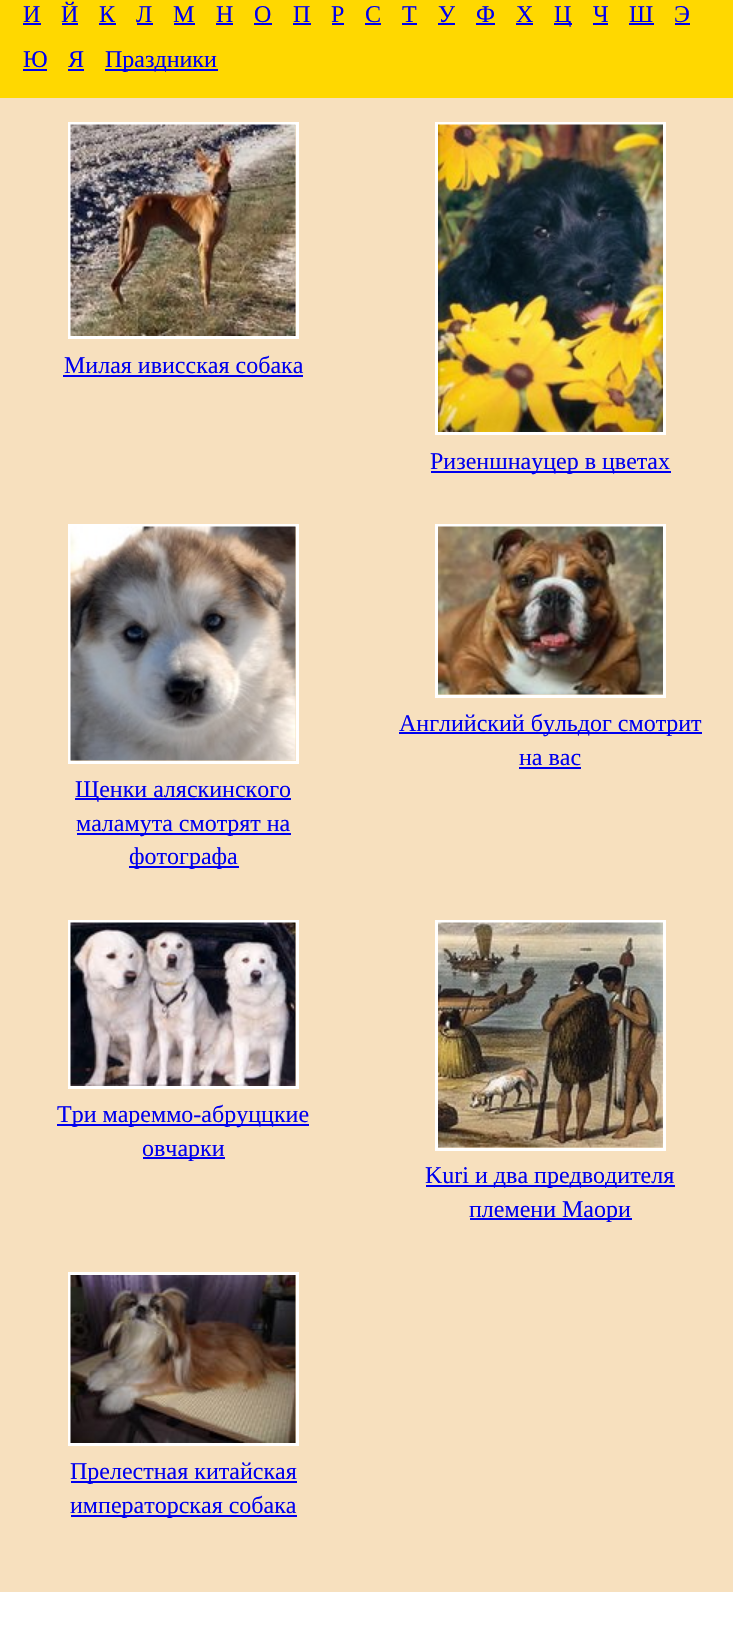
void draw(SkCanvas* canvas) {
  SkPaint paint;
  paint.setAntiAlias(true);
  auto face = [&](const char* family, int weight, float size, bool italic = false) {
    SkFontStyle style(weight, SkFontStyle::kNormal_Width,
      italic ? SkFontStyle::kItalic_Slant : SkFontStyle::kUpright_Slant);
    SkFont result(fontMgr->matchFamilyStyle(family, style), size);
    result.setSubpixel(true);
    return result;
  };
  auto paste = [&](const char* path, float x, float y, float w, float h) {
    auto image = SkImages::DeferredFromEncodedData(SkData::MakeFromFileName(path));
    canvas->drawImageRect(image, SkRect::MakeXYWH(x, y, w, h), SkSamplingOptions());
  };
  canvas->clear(0xffffffff);
  {
    const struct { float x, y, w, h; SkColor color; } items[] = {
      {0, 0, 733, 98, 0xffffd800},
      {23, 23, 18, 2, 0xff0000ee},
      {62, 23, 16, 2, 0xff0000ee},
      {99, 23, 17, 2, 0xff0000ee},
      {137, 23, 16, 2, 0xff0000ee},
      {174, 23, 21, 2, 0xff0000ee},
      {216, 23, 17, 2, 0xff0000ee},
      {254, 23, 18, 2, 0xff0000ee},
      {293, 23, 18, 2, 0xff0000ee},
      {332, 23, 12, 2, 0xff0000ee},
      {365, 23, 16, 2, 0xff0000ee},
      {402, 23, 15, 2, 0xff0000ee},
      {438, 23, 17, 2, 0xff0000ee},
      {476, 23, 19, 2, 0xff0000ee},
      {516, 23, 17, 2, 0xff0000ee},
      {554, 23, 18, 2, 0xff0000ee},
      {593, 23, 15, 2, 0xff0000ee},
      {629, 23, 25, 2, 0xff0000ee},
      {675, 23, 15, 2, 0xff0000ee},
      {23, 69, 24, 2, 0xff0000ee},
      {68, 69, 16, 2, 0xff0000ee},
      {105, 69, 113, 2, 0xff0000ee},
      {0, 98, 733, 1494, 0xfff7e0be},
    };
    for (auto [x, y, w, h, color] : items) {
      paint.setColor(color);
      canvas->drawRect(SkRect::MakeXYWH(x, y, w, h), paint);
    }
  }
  paint.setStroke(true);
  paint.setStrokeWidth(3);
  paint.setColor(0xffffffff);
  canvas->drawRect(SkRect::MakeXYWH(69.5f, 123.5f, 228, 214), paint);
  paste("img/1.png", 70, 124, 226, 212);
  paint.setStroke(false);
  paint.setColor(0xff0000ee);
  canvas->drawRect(SkRect::MakeXYWH(63, 375, 240, 2), paint);
  paint.setStroke(true);
  paint.setColor(0xffffffff);
  canvas->drawRect(SkRect::MakeXYWH(436.5f, 123.5f, 228, 310), paint);
  paste("img/2.png", 438, 124, 225, 308);
  paint.setStroke(false);
  paint.setColor(0xff0000ee);
  canvas->drawRect(SkRect::MakeXYWH(431, 471, 240, 2), paint);
  paint.setStroke(true);
  paint.setColor(0xffffffff);
  canvas->drawRect(SkRect::MakeXYWH(436.5f, 525.5f, 228, 171), paint);
  paste("img/3.png", 438, 526, 225, 169);
  paint.setStroke(false);
  paint.setColor(0xff0000ee);
  canvas->drawRect(SkRect::MakeXYWH(399, 732, 303, 2), paint);
  canvas->drawRect(SkRect::MakeXYWH(519, 767, 62, 2), paint);
  paint.setStroke(true);
  paint.setColor(0xffffffff);
  canvas->drawRect(SkRect::MakeXYWH(69.5f, 525.5f, 228, 237), paint);
  paste("img/4.png", 70, 526, 226, 235);
  paint.setStroke(false);
  {
    const struct { float x, y, w, h; SkColor color; } items[] = {
      {75, 798, 216, 2, 0xff0000ee},
      {77, 833, 214, 2, 0xff0000ee},
      {129, 866, 110, 2, 0xff0000ee},
    };
    for (auto [x, y, w, h, color] : items) {
      paint.setColor(color);
      canvas->drawRect(SkRect::MakeXYWH(x, y, w, h), paint);
    }
  }
  paint.setStroke(true);
  paint.setColor(0xffffffff);
  canvas->drawRect(SkRect::MakeXYWH(69.5f, 921.5f, 228, 166), paint);
  paste("img/5.png", 70, 922, 226, 164);
  paint.setStroke(false);
  paint.setColor(0xff0000ee);
  canvas->drawRect(SkRect::MakeXYWH(57, 1124, 252, 2), paint);
  canvas->drawRect(SkRect::MakeXYWH(143, 1157, 82, 2), paint);
  paint.setStroke(true);
  paint.setColor(0xffffffff);
  canvas->drawRect(SkRect::MakeXYWH(436.5f, 921.5f, 228, 228), paint);
  paste("img/6.png", 438, 922, 225, 226);
  paint.setStroke(false);
  paint.setColor(0xff0000ee);
  canvas->drawRect(SkRect::MakeXYWH(426, 1185, 249, 2), paint);
  canvas->drawRect(SkRect::MakeXYWH(470, 1218, 162, 2), paint);
  paint.setStroke(true);
  paint.setColor(0xffffffff);
  canvas->drawRect(SkRect::MakeXYWH(69.5f, 1273.5f, 228, 171), paint);
  paste("img/7.png", 70, 1275, 226, 168);
  paint.setStroke(false);
  paint.setColor(0xff0000ee);
  canvas->drawRect(SkRect::MakeXYWH(71, 1481, 226, 2), paint);
  canvas->drawRect(SkRect::MakeXYWH(71, 1515, 226, 2), paint);
  auto f0 = face("Liberation Serif", 400, 24);
  {
    const struct { const char* s; float x, y; } items[] = {
      {"И", 23, 22},
      {"Й", 61, 22},
      {"К", 99, 22},
      {"Л", 136, 22},
      {"М", 173, 22},
      {"Н", 216, 22},
      {"О", 254, 22},
      {"П", 293, 22},
      {"Р", 331, 22},
      {"С", 365, 22},
      {"Т", 402, 22},
      {"У", 438, 22},
      {"Ф", 476, 22},
      {"Х", 516, 22},
      {"Ц", 554, 22},
      {"Ч", 593, 22},
      {"Ш", 629, 22},
      {"Э", 674, 22},
      {"Ю", 23, 67},
      {"Я", 68, 67},
      {"Праздники", 105, 67},
      {"Милая ивисская собака", 64, 373},
      {"Ризеншнауцер в цветах", 430, 469},
      {"Английский бульдог смотрит", 399, 731},
      {"на вас", 519, 765},
      {"Щенки аляскинского", 75, 797},
      {"маламута смотрят на", 76, 831},
      {"фотографа", 129, 864},
      {"Три мареммо-абруццкие", 57, 1122},
      {"овчарки", 142, 1156},
      {"Kuri и два предводителя", 425, 1183},
      {"племени Маори", 469, 1217},
      {"Прелестная китайская", 70, 1479},
      {"императорская собака", 70, 1513},
    };
    for (auto [s, x, y] : items) {
      canvas->drawString(s, x, y, f0, paint);
    }
  }
}
